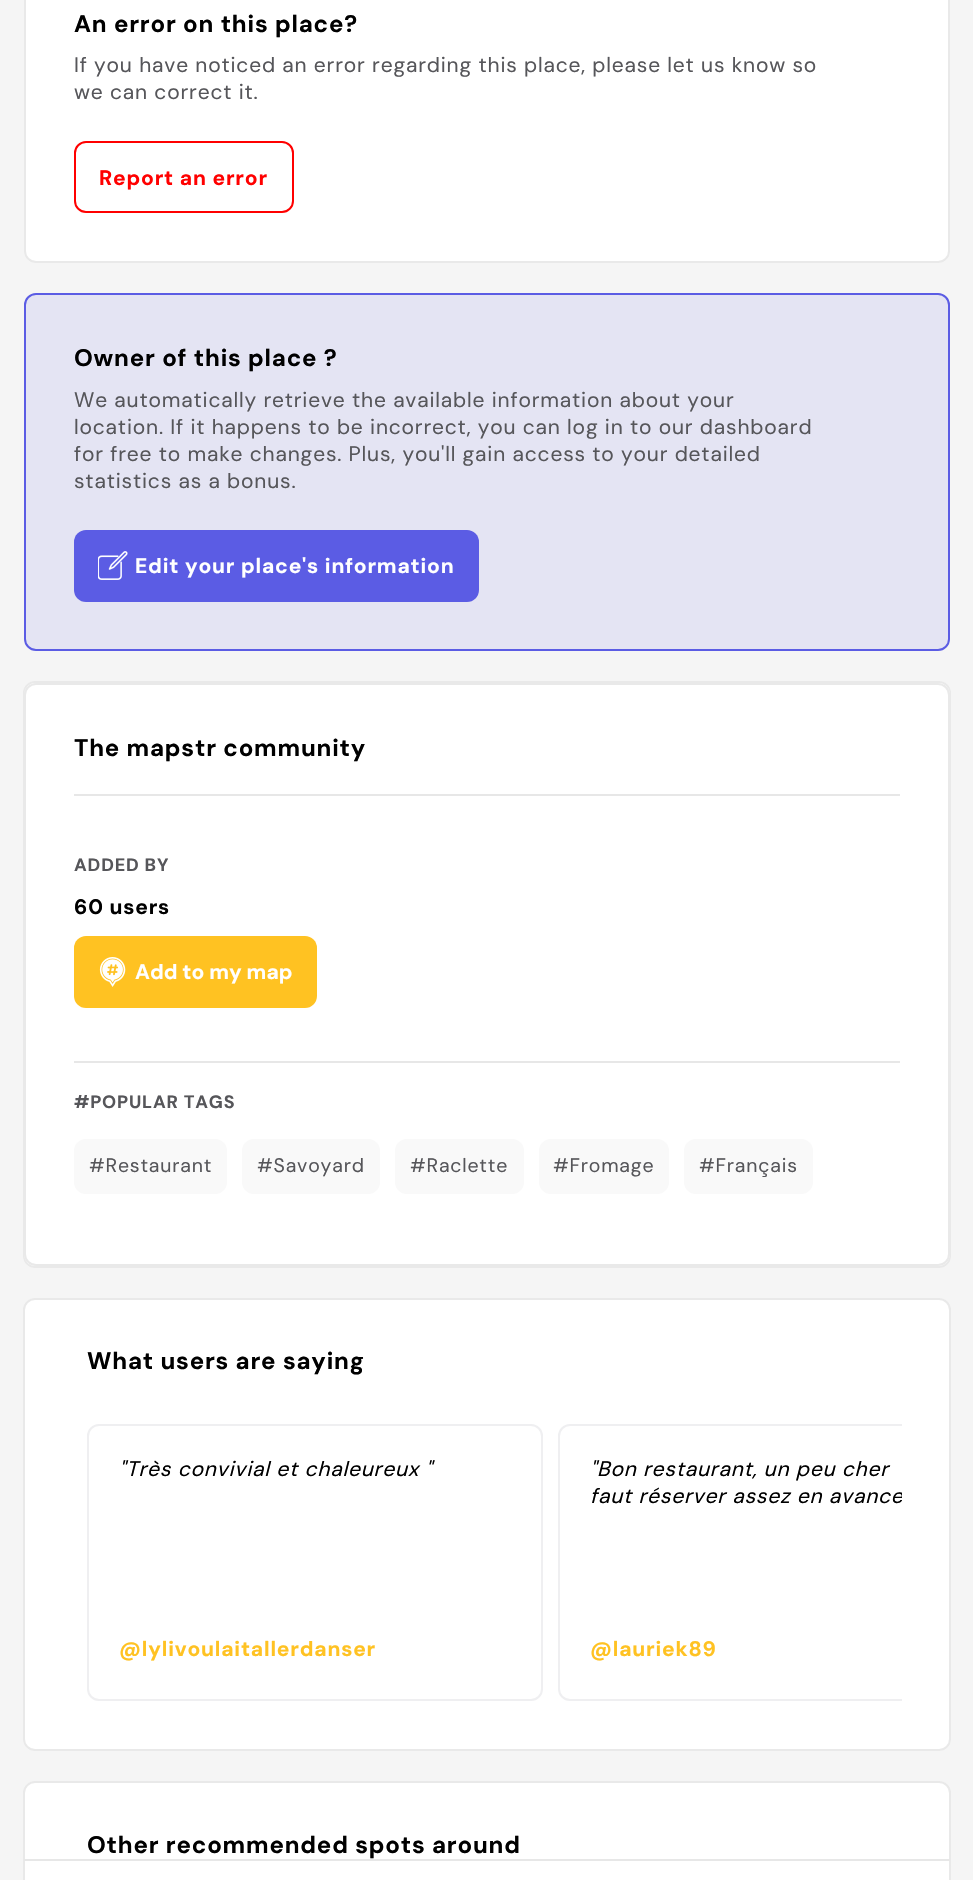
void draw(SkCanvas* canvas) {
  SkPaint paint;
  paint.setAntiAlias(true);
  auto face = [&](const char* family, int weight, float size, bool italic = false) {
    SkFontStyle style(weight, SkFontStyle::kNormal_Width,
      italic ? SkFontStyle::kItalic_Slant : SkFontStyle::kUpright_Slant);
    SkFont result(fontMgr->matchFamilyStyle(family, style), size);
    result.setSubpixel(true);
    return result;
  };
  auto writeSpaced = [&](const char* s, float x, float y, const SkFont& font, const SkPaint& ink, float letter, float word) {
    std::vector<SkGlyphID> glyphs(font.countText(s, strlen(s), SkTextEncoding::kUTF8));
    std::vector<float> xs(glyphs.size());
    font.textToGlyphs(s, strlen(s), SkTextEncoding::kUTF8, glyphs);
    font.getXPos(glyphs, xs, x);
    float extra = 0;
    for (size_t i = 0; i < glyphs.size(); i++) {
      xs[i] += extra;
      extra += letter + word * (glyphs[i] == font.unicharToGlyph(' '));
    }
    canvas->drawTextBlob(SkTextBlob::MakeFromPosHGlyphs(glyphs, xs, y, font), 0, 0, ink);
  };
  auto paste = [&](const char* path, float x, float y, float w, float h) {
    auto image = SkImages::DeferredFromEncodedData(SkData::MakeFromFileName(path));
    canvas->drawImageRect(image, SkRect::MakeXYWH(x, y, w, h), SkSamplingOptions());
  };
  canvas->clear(0xfff5f5f5);
  paint.setColor(0xffffffff);
  canvas->drawRoundRect(SkRect::MakeXYWH(24, -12, 926, 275), 12, 12, paint);
  paint.setStroke(true);
  paint.setStrokeWidth(2);
  paint.setColor(0x82d3d3d3);
  canvas->drawRoundRect(SkRect::MakeXYWH(25, -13, 924, 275), 11, 11, paint);
  paint.setColor(0xffff0000);
  canvas->drawRoundRect(SkRect::MakeXYWH(75, 142, 218, 70), 11, 11, paint);
  paint.setStroke(false);
  paint.setColor(0xffe4e4f3);
  canvas->drawRoundRect(SkRect::MakeXYWH(25, 294, 924, 356), 11, 11, paint);
  paint.setStroke(true);
  paint.setColor(0xff5b5ce4);
  canvas->drawRoundRect(SkRect::MakeXYWH(25, 294, 924, 356), 11, 11, paint);
  paint.setStroke(false);
  canvas->drawRoundRect(SkRect::MakeXYWH(74, 530, 405, 72), 12, 12, paint);
  paste("img/1.png", 98, 551, 30, 29);
  paint.setColor(0xffffffff);
  canvas->drawRoundRect(SkRect::MakeXYWH(23, 681, 928, 587), 12, 12, paint);
  paint.setStroke(true);
  paint.setColor(0x82d3d3d3);
  canvas->drawRoundRect(SkRect::MakeXYWH(24, 682, 926, 585), 11, 11, paint);
  paint.setStroke(false);
  paint.setColor(0xffffffff);
  canvas->drawRoundRect(SkRect::MakeXYWH(24, 683, 926, 583), 12, 12, paint);
  paint.setStroke(true);
  paint.setColor(0x82d3d3d3);
  canvas->drawRoundRect(SkRect::MakeXYWH(25, 684, 924, 581), 11, 11, paint);
  paint.setStroke(false);
  paint.setColor(0xffe7e7e7);
  canvas->drawRect(SkRect::MakeXYWH(74, 794, 826, 2), paint);
  paint.setColor(0xffffc222);
  canvas->drawRoundRect(SkRect::MakeXYWH(74, 936, 243, 72), 12, 12, paint);
  paste("img/2.png", 99, 957, 27, 30);
  paint.setColor(0xffe7e7e7);
  canvas->drawRect(SkRect::MakeXYWH(74, 1061, 826, 2), paint);
  paint.setColor(0xfff9f9f9);
  canvas->drawRoundRect(SkRect::MakeXYWH(74, 1139, 153, 55), 12, 12, paint);
  canvas->drawRoundRect(SkRect::MakeXYWH(242, 1139, 138, 55), 12, 12, paint);
  canvas->drawRoundRect(SkRect::MakeXYWH(395, 1139, 129, 55), 12, 12, paint);
  canvas->drawRoundRect(SkRect::MakeXYWH(539, 1139, 130, 55), 12, 12, paint);
  canvas->drawRoundRect(SkRect::MakeXYWH(684, 1139, 129, 55), 12, 12, paint);
  paint.setColor(0xffffffff);
  canvas->drawRoundRect(SkRect::MakeXYWH(23, 1298, 928, 453), 12, 12, paint);
  paint.setStroke(true);
  paint.setColor(0x82d3d3d3);
  canvas->drawRoundRect(SkRect::MakeXYWH(24, 1299, 926, 451), 11, 11, paint);
  paint.setColor(0xffefeff1);
  canvas->drawRoundRect(SkRect::MakeXYWH(88, 1425, 454, 275), 11, 11, paint);
  canvas->save();
  canvas->clipRect(SkRect::MakeXYWH(72, 1424, 830, 277));
  canvas->drawRoundRect(SkRect::MakeXYWH(559, 1425, 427, 275), 11, 11, paint);
  canvas->restore();
  paint.setStroke(false);
  paint.setColor(0xffffffff);
  canvas->drawRoundRect(SkRect::MakeXYWH(23, 1781, 928, 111), 12, 12, paint);
  paint.setStroke(true);
  paint.setColor(0x82d3d3d3);
  canvas->drawRoundRect(SkRect::MakeXYWH(24, 1782, 926, 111), 11, 11, paint);
  paint.setStroke(false);
  paint.setColor(0xffe7e7e7);
  canvas->drawRect(SkRect::MakeXYWH(24, 1859, 926, 2), paint);
  auto f0 = face("DM Sans", 700, 24);
  paint.setColor(0xff000000);
  writeSpaced("An error on this place?", 74, 32, f0, paint, 0.82f, 0);
  auto f1 = face("DM Sans", 400, 21);
  paint.setColor(0xff56565a);
  writeSpaced("If you have noticed an error regarding this place, please let us know so", 74, 72, f1, paint, 0.82f, 0);
  writeSpaced("we can correct it.", 74, 99, f1, paint, 0.82f, 0);
  auto f2 = face("DM Sans", 700, 21);
  paint.setColor(0xffff0000);
  writeSpaced("Report an error", 99, 185, f2, paint, 0.82f, 0);
  paint.setColor(0xff000000);
  writeSpaced("Owner of this place ?", 74, 366, f0, paint, 0.82f, 0);
  paint.setColor(0xff56565a);
  {
    const struct { const char* s; float x, y; } items[] = {
      {"We automatically retrieve the available information about your", 74, 407},
      {"location. If it happens to be incorrect, you can log in to our dashboard", 74, 434},
      {"for free to make changes. Plus, you'll gain access to your detailed", 74, 461},
      {"statistics as a bonus.", 74, 488},
    };
    for (auto [s, x, y] : items) {
      writeSpaced(s, x, y, f1, paint, 0.82f, 0);
    }
  }
  paint.setColor(0xffffffff);
  writeSpaced("Edit your place's information", 135, 573, f2, paint, 0.82f, 0);
  paint.setColor(0xff000000);
  writeSpaced("The mapstr community", 74, 756, f0, paint, 0.82f, 0);
  auto f3 = face("DM Sans", 700, 18);
  paint.setColor(0xff56565a);
  writeSpaced("ADDED BY", 74, 871, f3, paint, 0.82f, 0);
  paint.setColor(0xff000000);
  writeSpaced("60 users", 74, 914, f2, paint, 0.82f, 0);
  paint.setColor(0xffffffff);
  canvas->drawString("Add to my map", 135, 979, f2, paint);
  paint.setColor(0xff56565a);
  writeSpaced("#POPULAR TAGS", 74, 1108, f3, paint, 0.82f, 0);
  auto f4 = face("DM Sans", 400, 19.5f);
  {
    const struct { const char* s; float x, y; } items[] = {
      {"#Restaurant", 89, 1172},
      {"#Savoyard", 257, 1172},
      {"#Raclette", 410, 1172},
      {"#Fromage", 553, 1172},
      {"#Français", 699, 1172},
    };
    for (auto [s, x, y] : items) {
      writeSpaced(s, x, y, f4, paint, 0.82f, 0);
    }
  }
  paint.setColor(0xff000000);
  writeSpaced("What users are saying", 87, 1369, f0, paint, 0.82f, 0);
  auto f5 = face("DM Sans", 400, 21, true);
  writeSpaced("\"Très convivial et chaleureux \"", 119, 1476, f5, paint, 0.82f, 0);
  paint.setColor(0xffffc222);
  writeSpaced("@lylivoulaitallerdanser", 119, 1656, f2, paint, 0.82f, 0);
  paint.setColor(0xff000000);
  writeSpaced("\"Bon restaurant, un peu cher", 590, 1476, f5, paint, 0.82f, 0);
  canvas->save();
  canvas->clipRect(SkRect::MakeXYWH(590, 1455, 312, 165));
  writeSpaced("faut réserver assez en avance", 590, 1503, f5, paint, 0.82f, 0);
  canvas->restore();
  paint.setColor(0xffffc222);
  writeSpaced("@lauriek89", 590, 1656, f2, paint, 0.82f, 0);
  paint.setColor(0xff000000);
  writeSpaced("Other recommended spots around", 87, 1853, f0, paint, 0.82f, 0);
}
